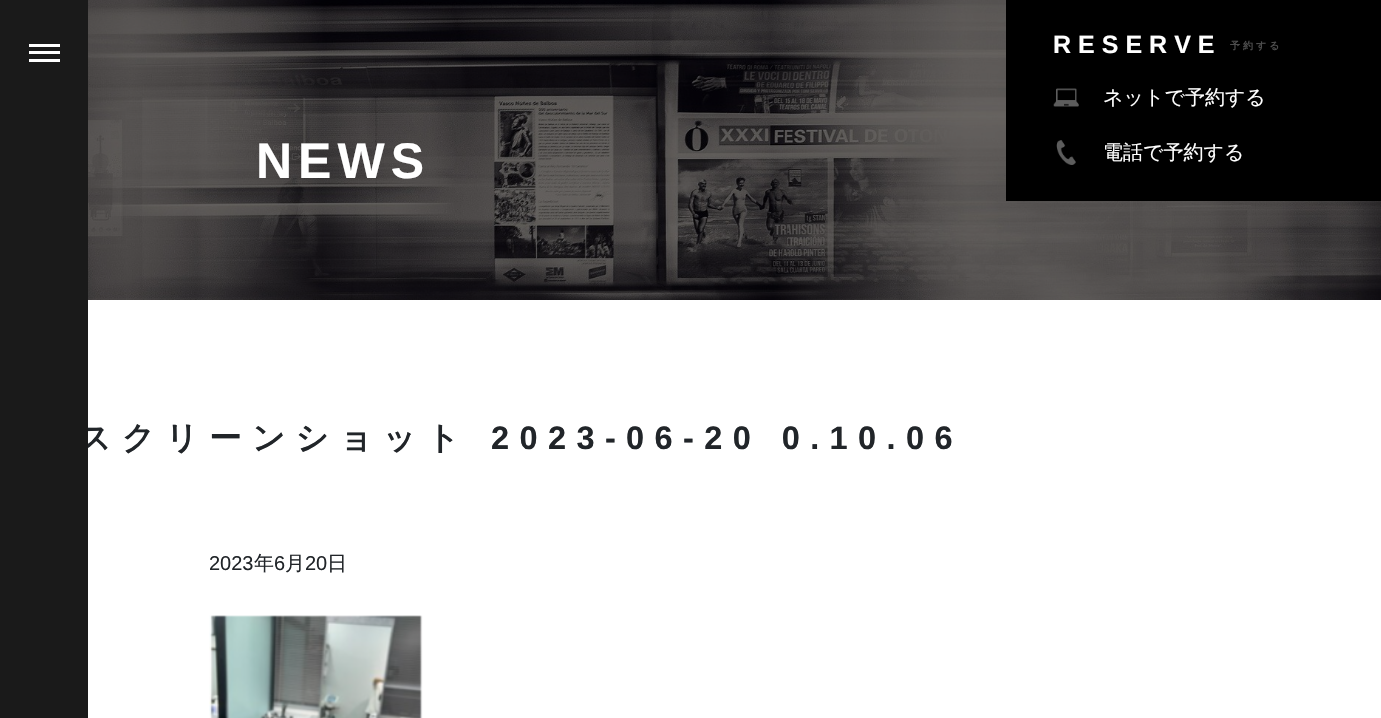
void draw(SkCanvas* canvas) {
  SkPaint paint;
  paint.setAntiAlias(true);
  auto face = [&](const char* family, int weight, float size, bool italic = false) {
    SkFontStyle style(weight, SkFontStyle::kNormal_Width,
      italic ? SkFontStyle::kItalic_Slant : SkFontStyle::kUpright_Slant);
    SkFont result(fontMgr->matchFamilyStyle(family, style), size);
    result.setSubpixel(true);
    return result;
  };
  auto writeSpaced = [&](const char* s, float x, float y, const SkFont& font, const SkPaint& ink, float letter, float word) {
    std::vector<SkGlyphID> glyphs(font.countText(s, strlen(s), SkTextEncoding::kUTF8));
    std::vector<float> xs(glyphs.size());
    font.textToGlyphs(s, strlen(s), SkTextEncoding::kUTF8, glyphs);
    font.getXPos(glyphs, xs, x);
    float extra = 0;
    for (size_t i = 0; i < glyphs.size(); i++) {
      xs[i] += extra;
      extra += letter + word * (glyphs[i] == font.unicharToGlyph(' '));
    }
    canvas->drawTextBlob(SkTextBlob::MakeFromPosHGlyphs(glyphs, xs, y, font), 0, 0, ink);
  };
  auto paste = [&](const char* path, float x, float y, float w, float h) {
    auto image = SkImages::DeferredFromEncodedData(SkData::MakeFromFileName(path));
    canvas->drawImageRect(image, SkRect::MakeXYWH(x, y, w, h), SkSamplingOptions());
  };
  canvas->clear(0xffffffff);
  paste("img/3.png", 88, 0, 1293, 300);
  paint.setColor(0xff000000);
  canvas->drawRect(SkRect::MakeXYWH(1006, 0, 375, 201), paint);
  paste("img/1.png", 1053, 88, 26, 19);
  paste("img/2.png", 1056, 140, 20, 25);
  paste("img/4.png", 209, 615, 214, 103);
  auto f0 = face("Liberation Sans", 700, 25);
  paint.setColor(0xffffffff);
  writeSpaced("RESERVE", 1053, 53, f0, paint, 7, 0);
  auto f1 = face("WenQuanYi Zen Hei", 700, 10);
  paint.setColor(0xff4d4d4d);
  writeSpaced("予約する", 1230, 49, f1, paint, 3, 0);
  auto f2 = face("WenQuanYi Zen Hei", 500, 20);
  paint.setColor(0xffffffff);
  canvas->drawString("ネットで予約する", 1103, 104, f2, paint);
  canvas->drawString("電話で予約する", 1103, 159, f2, paint);
  auto f3 = face("Liberation Sans", 700, 50);
  writeSpaced("NEWS", 256, 178, f3, paint, 6, 0);
  auto f4 = face("WenQuanYi Zen Hei", 700, 32.5f);
  paint.setColor(0xff212529);
  writeSpaced("スクリーンショット", 78, 449, f4, paint, 10.4f, 0);
  {
    const struct { float x, y, w, h; SkColor color; } items[] = {
      {0, 0, 88, 718, 0xff1a1a1a},
      {29, 59, 31, 3, 0xffffffff},
      {29, 51, 31, 3, 0xffffffff},
      {29, 44, 31, 3, 0xffffffff},
    };
    for (auto [x, y, w, h, color] : items) {
      paint.setColor(color);
      canvas->drawRect(SkRect::MakeXYWH(x, y, w, h), paint);
    }
  }
  auto f5 = face("Liberation Sans", 700, 32.5f);
  paint.setColor(0xff212529);
  writeSpaced("2023-06-20 0.10.06", 491, 449, f5, paint, 10.4f, 1);
  auto f6 = face("Liberation Sans", 400, 20);
  canvas->drawString("2023", 209, 570, f6, paint);
  canvas->drawString("年", 254, 570, f2, paint);
  canvas->drawString("6", 274, 570, f6, paint);
  canvas->drawString("月", 285, 570, f2, paint);
  canvas->drawString("20", 305, 570, f6, paint);
  canvas->drawString("日", 327, 570, f2, paint);
}
